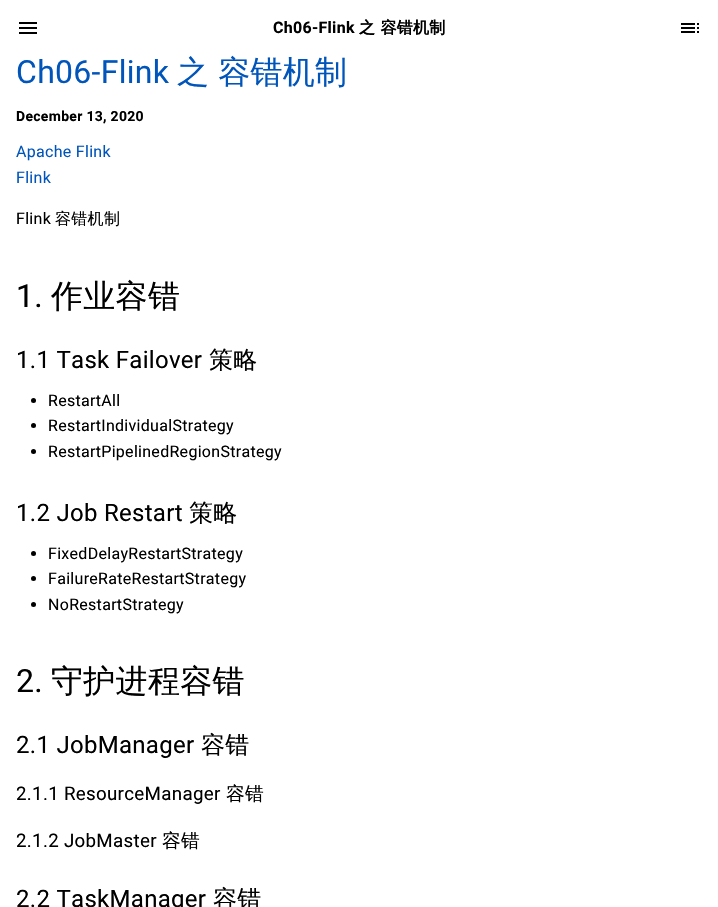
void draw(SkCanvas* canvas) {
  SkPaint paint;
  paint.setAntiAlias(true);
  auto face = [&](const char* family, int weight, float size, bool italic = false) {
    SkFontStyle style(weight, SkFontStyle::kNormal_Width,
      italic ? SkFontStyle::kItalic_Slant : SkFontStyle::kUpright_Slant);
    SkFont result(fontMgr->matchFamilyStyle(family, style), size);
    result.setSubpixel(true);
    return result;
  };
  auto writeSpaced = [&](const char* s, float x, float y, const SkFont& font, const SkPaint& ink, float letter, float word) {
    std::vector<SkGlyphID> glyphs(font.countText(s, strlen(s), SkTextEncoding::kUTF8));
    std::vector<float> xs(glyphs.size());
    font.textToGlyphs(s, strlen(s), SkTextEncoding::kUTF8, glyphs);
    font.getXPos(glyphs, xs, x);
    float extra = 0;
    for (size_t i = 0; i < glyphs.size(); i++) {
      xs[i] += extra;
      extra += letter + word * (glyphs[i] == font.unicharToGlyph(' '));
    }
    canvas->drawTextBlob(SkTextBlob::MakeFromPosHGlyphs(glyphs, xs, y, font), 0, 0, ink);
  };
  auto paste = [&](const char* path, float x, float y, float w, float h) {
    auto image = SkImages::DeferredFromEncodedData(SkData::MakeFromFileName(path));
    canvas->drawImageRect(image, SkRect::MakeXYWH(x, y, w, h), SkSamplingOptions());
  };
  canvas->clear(0xffffffff);
  paste("img/1.png", 19, 22, 18, 12);
  paste("img/2.png", 681, 23, 18, 10);
  paint.setColor(0xff000000);
  canvas->drawCircle(33.5f, 400.5f, 2.5f, paint);
  canvas->drawCircle(33.5f, 425.5f, 2.5f, paint);
  canvas->drawCircle(33.5f, 451.5f, 2.5f, paint);
  canvas->drawCircle(33.5f, 553.5f, 2.5f, paint);
  canvas->drawCircle(33.5f, 578.5f, 2.5f, paint);
  canvas->drawCircle(33.5f, 604.5f, 2.5f, paint);
  auto f0 = face("Roboto", 700, 16);
  writeSpaced("Ch06-Flink", 273, 33, f0, paint, 0.3f, 0);
  auto f1 = face("WenQuanYi Zen Hei", 700, 16);
  writeSpaced("之 容错机制", 359, 33, f1, paint, 0.3f, 0);
  auto f2 = face("Roboto", 400, 32);
  paint.setColor(0xff0055bb);
  writeSpaced("Ch06-Flink", 16, 83, f2, paint, 0.3f, 0);
  auto f3 = face("WenQuanYi Zen Hei", 500, 32);
  writeSpaced("之 容错机制", 177, 83, f3, paint, 0.3f, -1);
  auto f4 = face("Roboto", 700, 14);
  paint.setColor(0xff000000);
  writeSpaced("December 13, 2020", 16, 121, f4, paint, 0.3f, 0);
  auto f5 = face("Roboto", 400, 16);
  paint.setColor(0xff0055bb);
  writeSpaced("Apache Flink", 16, 157, f5, paint, 0.3f, 0);
  writeSpaced("Flink", 16, 183, f5, paint, 0.3f, 0);
  paint.setColor(0xff000000);
  writeSpaced("Flink", 16, 224, f5, paint, 0.3f, 0);
  auto f6 = face("WenQuanYi Zen Hei", 500, 16);
  writeSpaced("容错机制", 55, 224, f6, paint, 0.3f, 0);
  writeSpaced("1.", 16, 307, f2, paint, 0.3f, 0);
  writeSpaced("作业容错", 51, 307, f3, paint, 0.3f, 0);
  auto f7 = face("Roboto", 400, 24);
  writeSpaced("1.1 Task Failover", 16, 368, f7, paint, 0.3f, 0);
  auto f8 = face("WenQuanYi Zen Hei", 500, 24);
  writeSpaced("策略", 209, 368, f8, paint, 0.3f, 0);
  {
    const struct { const char* s; float x, y; } items[] = {
      {"RestartAll", 48, 406},
      {"RestartIndividualStrategy", 48, 431},
      {"RestartPipelinedRegionStrategy", 48, 457},
    };
    for (auto [s, x, y] : items) {
      writeSpaced(s, x, y, f5, paint, 0.3f, 0);
    }
  }
  writeSpaced("1.2 Job Restart", 16, 521, f7, paint, 0.3f, 0);
  writeSpaced("策略", 189, 521, f8, paint, 0.3f, 0);
  {
    const struct { const char* s; float x, y; } items[] = {
      {"FixedDelayRestartStrategy", 48, 559},
      {"FailureRateRestartStrategy", 48, 584},
      {"NoRestartStrategy", 48, 610},
    };
    for (auto [s, x, y] : items) {
      writeSpaced(s, x, y, f5, paint, 0.3f, 0);
    }
  }
  writeSpaced("2.", 16, 692, f2, paint, 0.3f, 0);
  writeSpaced("守护进程容错", 51, 692, f3, paint, 0.3f, 0);
  writeSpaced("2.1 JobManager", 16, 753, f7, paint, 0.3f, 0);
  writeSpaced("容错", 201, 753, f8, paint, 0.3f, 0);
  auto f9 = face("Roboto", 400, 18.75f);
  writeSpaced("2.1.1 ResourceManager", 16, 800, f9, paint, 0.3f, 0);
  auto f10 = face("WenQuanYi Zen Hei", 500, 18.75f);
  writeSpaced("容错", 226, 800, f10, paint, 0.3f, 0);
  writeSpaced("2.1.2 JobMaster", 16, 847, f9, paint, 0.3f, 0);
  writeSpaced("容错", 162, 847, f10, paint, 0.3f, 0);
  writeSpaced("2.2 TaskManager", 16, 907, f7, paint, 0.3f, 0);
  writeSpaced("容错", 213, 907, f8, paint, 0.3f, 0);
}
